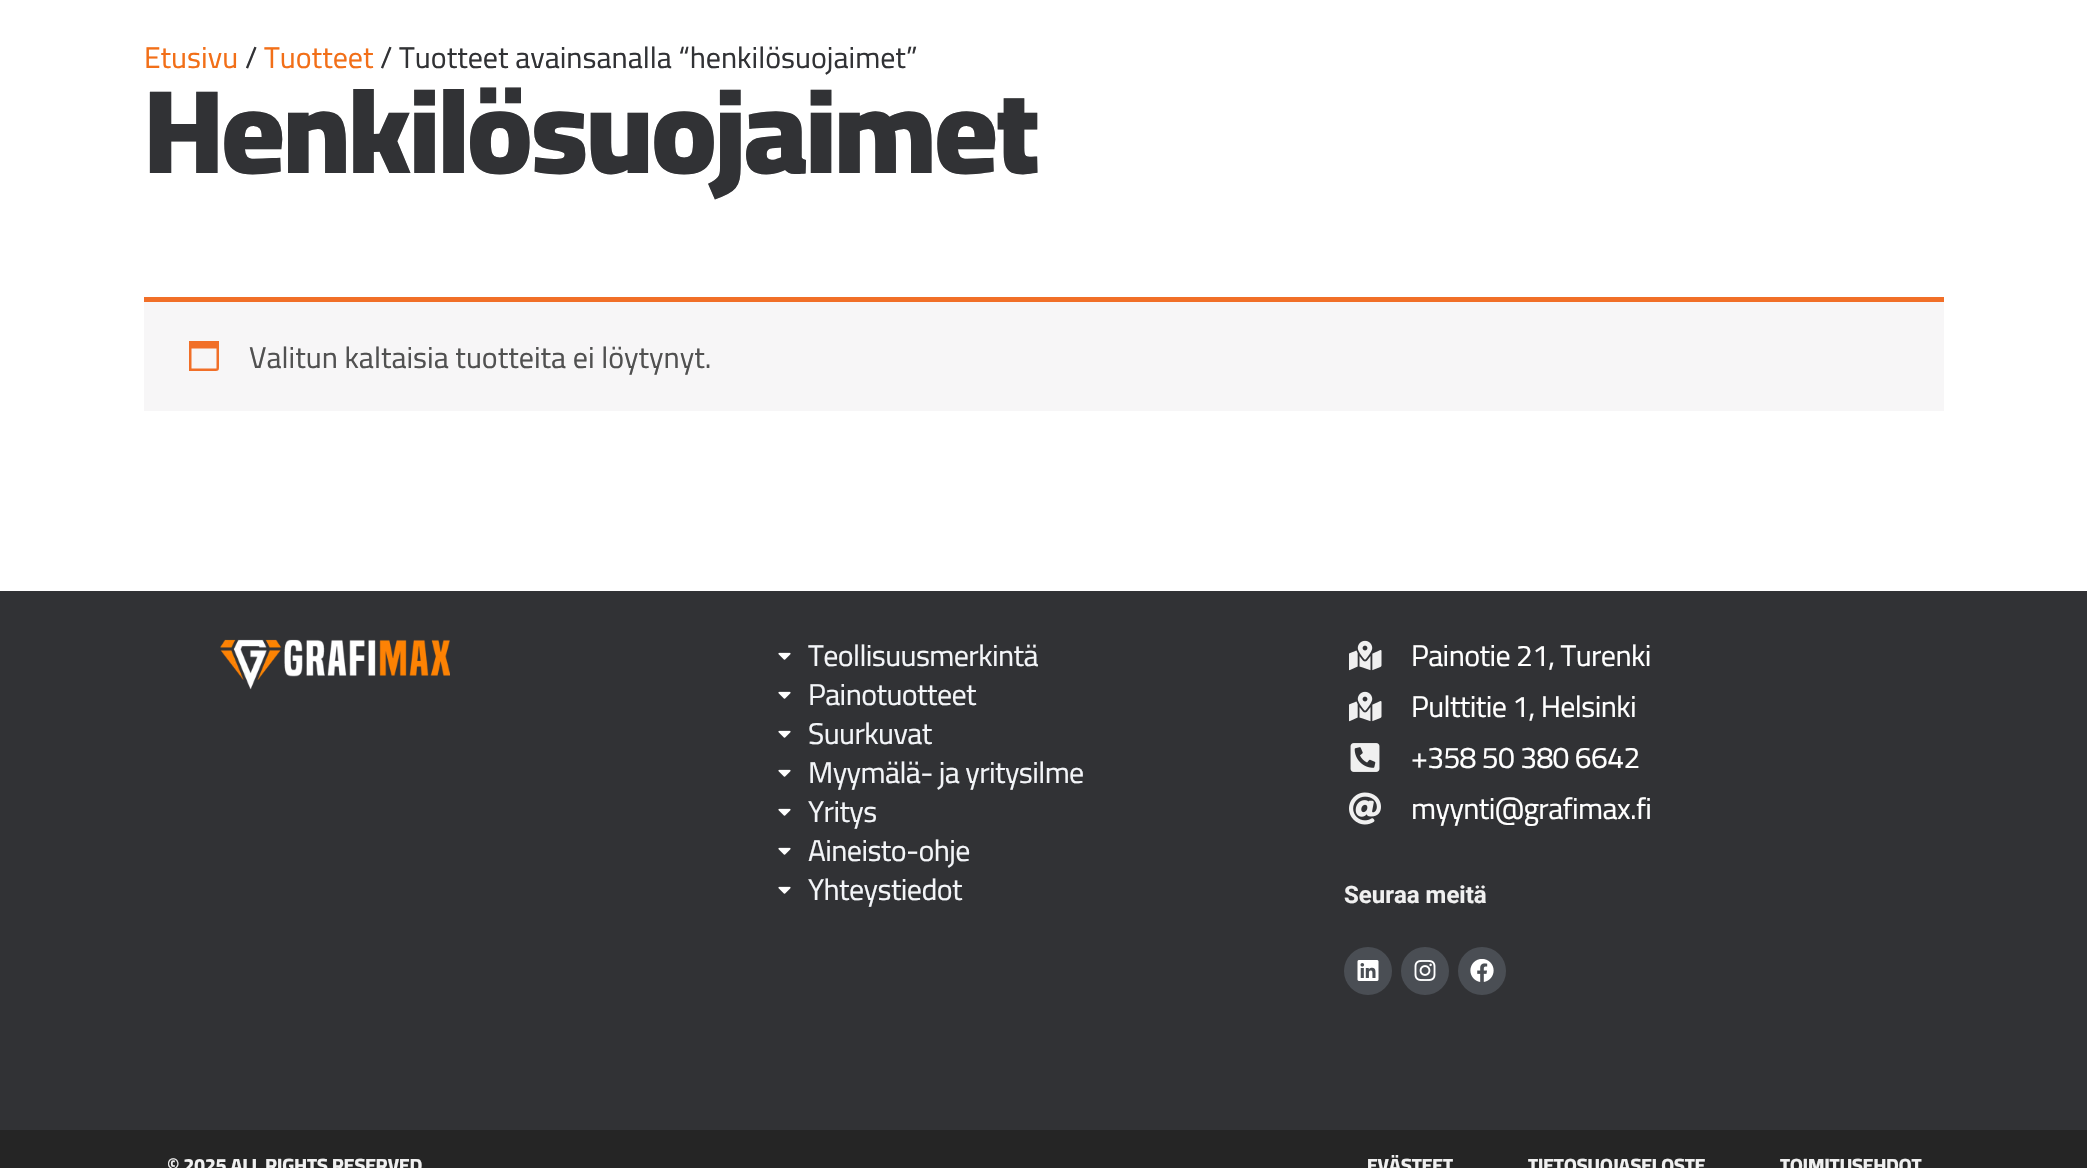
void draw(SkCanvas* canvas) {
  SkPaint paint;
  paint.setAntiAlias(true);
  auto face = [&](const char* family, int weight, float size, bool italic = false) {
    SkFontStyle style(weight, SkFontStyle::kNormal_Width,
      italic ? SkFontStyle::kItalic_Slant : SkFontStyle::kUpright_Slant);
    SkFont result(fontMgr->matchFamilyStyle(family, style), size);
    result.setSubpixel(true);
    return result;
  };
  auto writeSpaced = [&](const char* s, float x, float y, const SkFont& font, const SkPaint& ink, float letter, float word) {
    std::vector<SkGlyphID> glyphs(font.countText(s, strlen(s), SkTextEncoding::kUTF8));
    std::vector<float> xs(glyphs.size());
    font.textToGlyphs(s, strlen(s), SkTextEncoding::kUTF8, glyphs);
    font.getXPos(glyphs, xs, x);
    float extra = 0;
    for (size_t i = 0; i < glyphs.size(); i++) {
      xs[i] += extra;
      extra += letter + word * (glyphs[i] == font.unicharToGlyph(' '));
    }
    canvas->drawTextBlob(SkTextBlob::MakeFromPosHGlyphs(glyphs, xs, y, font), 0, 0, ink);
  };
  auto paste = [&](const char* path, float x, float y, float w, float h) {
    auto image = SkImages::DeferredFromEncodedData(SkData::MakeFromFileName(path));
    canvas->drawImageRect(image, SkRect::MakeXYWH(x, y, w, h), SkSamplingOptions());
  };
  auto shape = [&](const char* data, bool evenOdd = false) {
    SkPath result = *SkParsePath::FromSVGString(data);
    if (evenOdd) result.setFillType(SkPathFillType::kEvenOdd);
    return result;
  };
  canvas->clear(0xffffffff);
  paint.setColor(0xfff7f6f7);
  canvas->drawRect(SkRect::MakeXYWH(144, 302, 1800, 109), paint);
  paint.setColor(0xfff16f28);
  canvas->drawRect(SkRect::MakeXYWH(144, 297, 1800, 5), paint);
  canvas->drawPath(shape("M216.5 348.5H191.5V368.5H216.5ZM219 341V364C219 371.5 219.5 371 212 371H189V341Z"), paint);
  paint.setColor(0xff313235);
  canvas->drawRect(SkRect::MakeXYWH(0, 591, 2087, 539), paint);
  paste("img/1.png", 220, 639, 230, 51);
  paste("img/2.png", 778, 652, 13, 8);
  paste("img/2.png", 778, 691, 13, 8);
  paste("img/2.png", 778, 730, 13, 8);
  paste("img/2.png", 778, 769, 13, 8);
  paste("img/2.png", 778, 808, 13, 8);
  paste("img/2.png", 778, 847, 13, 8);
  paste("img/2.png", 778, 886, 13, 8);
  paste("img/3.png", 1349, 640, 33, 31);
  paste("img/3.png", 1349, 691, 33, 31);
  paste("img/4.png", 1350, 743, 30, 29);
  paste("img/5.png", 1349, 792, 32, 33);
  paint.setColor(0xff4a4e54);
  canvas->drawCircle(1368, 971, 24, paint);
  paste("img/6.png", 1357, 960, 22, 21);
  canvas->drawCircle(1425, 971, 24, paint);
  paste("img/7.png", 1414, 960, 22, 21);
  canvas->drawCircle(1482, 971, 24, paint);
  paste("img/8.png", 1470, 959, 24, 23);
  paint.setColor(0xff252525);
  canvas->drawRect(SkRect::MakeXYWH(0, 1130, 2087, 38), paint);
  auto f0 = face("Cairo", 400, 30);
  paint.setColor(0xfff26f18);
  canvas->drawString("Etusivu", 144, 68, f0, paint);
  paint.setColor(0xff313235);
  canvas->drawString("/", 245, 68, f0, paint);
  paint.setColor(0xfff26f18);
  canvas->drawString("Tuotteet", 264, 68, f0, paint);
  paint.setColor(0xff313235);
  canvas->drawString("/ Tuotteet avainsanalla “henkilösuojaimet”", 380, 68, f0, paint);
  auto f1 = face("Cairo", 900, 120);
  writeSpaced("Henkilösuojaimet", 144, 173, f1, paint, -2.4f, 0);
  paint.setColor(0xff515151);
  canvas->drawString("Valitun kaltaisia tuotteita ei löytynyt.", 249, 368, f0, paint);
  paint.setColor(0xfff3f5f8);
  {
    const struct { const char* s; float x, y; } items[] = {
      {"Teollisuusmerkintä", 808, 666},
      {"Painotuotteet", 808, 705},
      {"Suurkuvat", 808, 744},
      {"Myymälä- ja yritysilme", 808, 783},
      {"Yritys", 808, 822},
      {"Aineisto-ohje", 808, 861},
      {"Yhteystiedot", 808, 900},
    };
    for (auto [s, x, y] : items) {
      writeSpaced(s, x, y, f0, paint, -0.6f, 0);
    }
  }
  paint.setColor(0xffffffff);
  {
    const struct { const char* s; float x, y; } items[] = {
      {"Painotie 21, Turenki", 1411, 666},
      {"Pulttitie 1, Helsinki", 1411, 717},
      {"+358 50 380 6642", 1411, 768},
      {"myynti@grafimax.fi", 1411, 819},
    };
    for (auto [s, x, y] : items) {
      writeSpaced(s, x, y, f0, paint, -0.6f, 0);
    }
  }
  auto f2 = face("Roboto", 700, 24);
  paint.setColor(0xfff0f0f0);
  canvas->drawString("Seuraa meitä", 1344, 903, f2, paint);
  auto f3 = face("Cairo", 800, 19.25f);
  {
    const struct { const char* s; float x, y; } items[] = {
      {"© 2025 ALL RIGHTS RESERVED", 167, 1172},
      {"EVÄSTEET", 1367, 1172},
      {"TIETOSUOJASELOSTE", 1528, 1172},
      {"TOIMITUSEHDOT", 1780, 1172},
    };
    for (auto [s, x, y] : items) {
      canvas->drawString(s, x, y, f3, paint);
    }
  }
}
